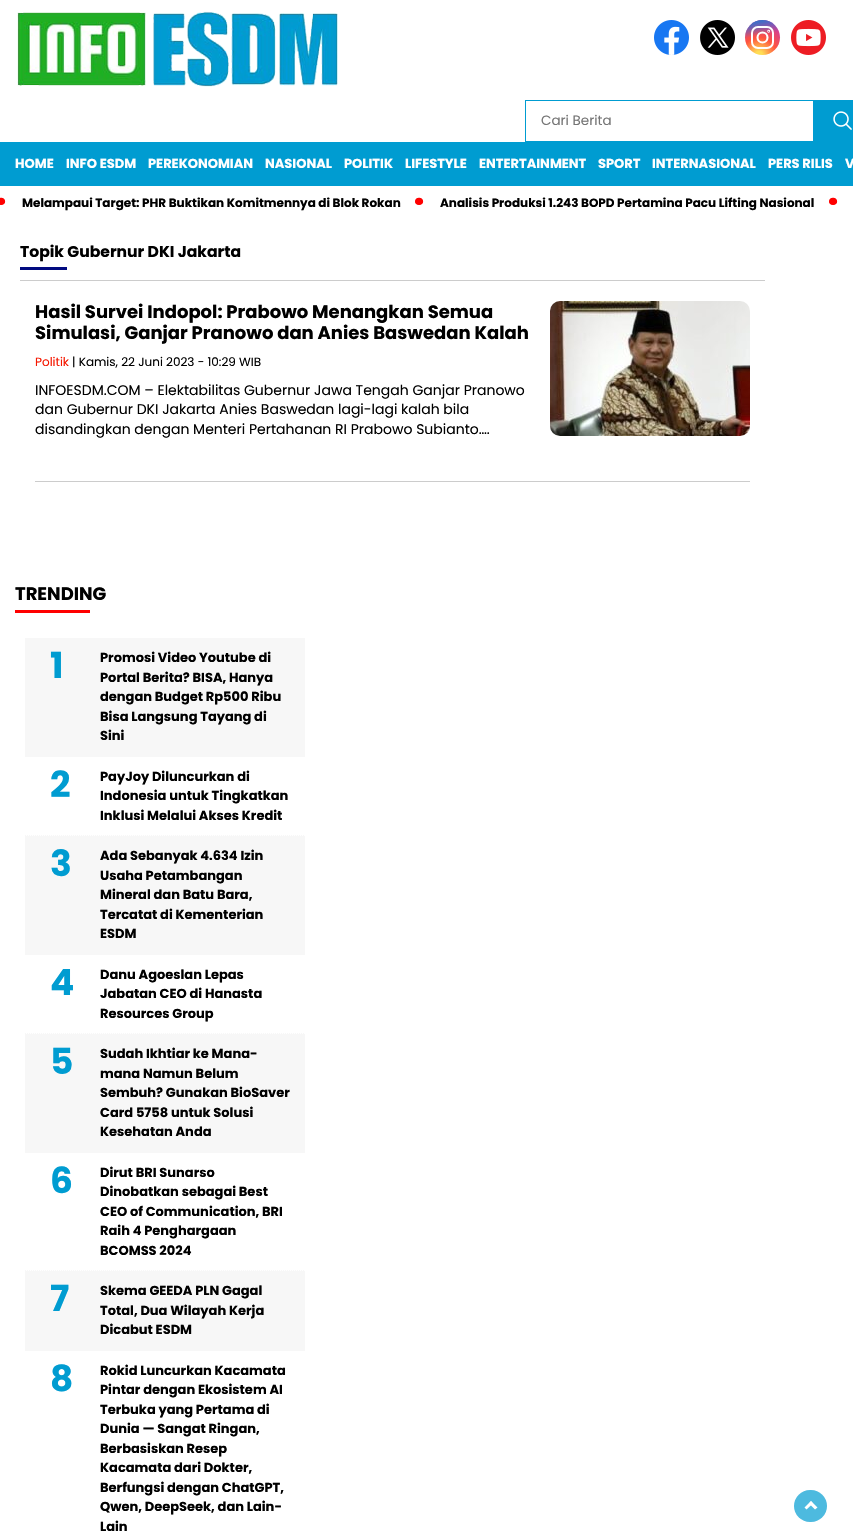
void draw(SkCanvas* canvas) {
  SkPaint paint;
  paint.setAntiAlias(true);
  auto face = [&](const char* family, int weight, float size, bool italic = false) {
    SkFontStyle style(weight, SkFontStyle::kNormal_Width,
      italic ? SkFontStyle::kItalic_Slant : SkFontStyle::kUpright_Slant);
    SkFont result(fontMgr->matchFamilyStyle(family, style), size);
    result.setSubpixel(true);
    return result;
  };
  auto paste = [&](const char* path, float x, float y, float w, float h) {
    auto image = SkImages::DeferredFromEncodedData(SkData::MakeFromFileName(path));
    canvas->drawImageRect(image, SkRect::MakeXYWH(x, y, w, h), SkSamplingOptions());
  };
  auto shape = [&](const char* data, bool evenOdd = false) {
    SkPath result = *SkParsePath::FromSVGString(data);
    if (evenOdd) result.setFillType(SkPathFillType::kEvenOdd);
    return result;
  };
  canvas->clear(0xffffffff);
  paste("img/1.png", 17, 11, 321, 76);
  paste("img/2.png", 654, 20, 35, 35);
  paste("img/3.png", 700, 20, 35, 35);
  {
    const SkColor colors[] = {0xffffdd55, 0xffff543e, 0xffc837ab};
    const float stops[] = {0.1f, 0.5f, 1};
    paint.setShader(SkGradientShader::MakeRadial({759, 55}, 35, colors, stops, 3, SkTileMode::kClamp));
    paint.setAlpha(255);
  }
  canvas->drawCircle(762.5f, 37.5f, 17.5f, paint);
  {
    const SkColor colors[] = {0xff3771c8, 0x003771c8};
    const float stops[] = {0.1f, 0.5f};
    const SkPoint ends[] = {{745, 20}, {752, 55}};
    paint.setShader(SkGradientShader::MakeLinear(ends, colors, stops, 2, SkTileMode::kClamp));
    paint.setAlpha(255);
  }
  canvas->drawCircle(762.5f, 37.5f, 17.5f, paint);
  paint.setStroke(true);
  paint.setStrokeWidth(2);
  paint.setShader(nullptr);
  paint.setColor(0xffffffff);
  canvas->drawRoundRect(SkRect::MakeXYWH(752, 27, 21, 21), 6, 6, paint);
  paint.setStrokeWidth(2.1f);
  canvas->drawCircle(762.5f, 37.5f, 5, paint);
  canvas->drawCircle(768.7f, 31.3f, 0.4f, paint);
  paste("img/4.png", 791, 20, 35, 35);
  paint.setStrokeWidth(1);
  paint.setColor(0xff009cd1);
  canvas->drawRect(SkRect::MakeXYWH(525.5f, 100.5f, 288, 41), paint);
  paint.setStroke(false);
  canvas->drawRect(SkRect::MakeXYWH(814, 100, 39, 42), paint);
  paste("img/5.png", 833, 111, 19, 19);
  {
    const struct { float x, y, w, h; SkColor color; } items[] = {
      {0, 142, 853, 44, 0xff009cd1},
      {20, 280, 745, 1, 0xffcccccc},
      {20, 267, 47, 3, 0xff010a80},
      {35, 481, 715, 1, 0xffcccccc},
    };
    for (auto [x, y, w, h, color] : items) {
      paint.setColor(color);
      canvas->drawRect(SkRect::MakeXYWH(x, y, w, h), paint);
    }
  }
  paste("img/6.png", 550, 301, 200, 135);
  paint.setColor(0xffff0000);
  canvas->drawRect(SkRect::MakeXYWH(15, 610, 75, 3), paint);
  paint.setColor(0xfff7f7f7);
  canvas->drawRect(SkRect::MakeXYWH(25, 638, 280, 119), paint);
  paint.setStroke(true);
  paint.setPathEffect(SkDashPathEffect::Make({{1, 1}}, 0));
  canvas->drawPath(shape("M25 835.5H305"), paint);
  paint.setPathEffect(nullptr);
  paint.setStroke(false);
  canvas->drawRect(SkRect::MakeXYWH(25, 836, 280, 119), paint);
  paint.setStroke(true);
  paint.setPathEffect(SkDashPathEffect::Make({{1, 1}}, 0));
  canvas->drawPath(shape("M25 1033.5H305"), paint);
  paint.setPathEffect(nullptr);
  paint.setStroke(false);
  canvas->drawRect(SkRect::MakeXYWH(25, 1034, 280, 119), paint);
  paint.setStroke(true);
  paint.setPathEffect(SkDashPathEffect::Make({{1, 1}}, 0));
  canvas->drawPath(shape("M25 1270.5H305"), paint);
  paint.setPathEffect(nullptr);
  paint.setStroke(false);
  canvas->drawRect(SkRect::MakeXYWH(25, 1271, 280, 80), paint);
  paint.setColor(0xff4dbadf);
  canvas->drawRoundRect(SkRect::MakeXYWH(794, 1490, 33, 32), 16, 16, paint);
  paint.setColor(0xffffffff);
  canvas->drawPath(shape("M806.5 1509.5L804.5 1507.5L811 1501L813 1503.5Z"), paint);
  canvas->drawPath(shape("M815 1509.5L809 1503.5L811 1501L817.5 1507.5Z"), paint);
  auto f0 = face("Poppins", 400, 13.5f);
  paint.setColor(0xff757575);
  canvas->drawString("Cari Berita", 541, 125, f0, paint);
  auto f1 = face("Poppins", 700, 13);
  paint.setColor(0xffffffff);
  {
    const struct { const char* s; float x, y; } items[] = {
      {"HOME", 15, 168},
      {"INFO ESDM", 66, 168},
      {"PEREKONOMIAN", 148, 168},
      {"NASIONAL", 265, 168},
      {"POLITIK", 344, 168},
      {"LIFESTYLE", 405, 168},
      {"ENTERTAINMENT", 479, 168},
      {"SPORT", 598, 168},
      {"INTERNASIONAL", 652, 168},
      {"PERS RILIS", 768, 168},
      {"V", 845, 168},
    };
    for (auto [s, x, y] : items) {
      canvas->drawString(s, x, y, f1, paint);
    }
  }
  auto f2 = face("Poppins", 700, 40);
  paint.setColor(0xffff0000);
  canvas->drawString("·", -5, 214, f2, paint);
  auto f3 = face("Poppins", 700, 12);
  paint.setColor(0xff000000);
  canvas->drawString("Melampaui Target: PHR Buktikan Komitmennya di Blok Rokan", 22, 207, f3, paint);
  paint.setColor(0xffff0000);
  canvas->drawString("·", 413, 214, f2, paint);
  paint.setColor(0xff000000);
  canvas->drawString("Analisis Produksi 1.243 BOPD Pertamina Pacu Lifting Nasional", 440, 207, f3, paint);
  paint.setColor(0xffff0000);
  canvas->drawString("·", 827, 214, f2, paint);
  auto f4 = face("Poppins", 700, 15.6f);
  paint.setColor(0xff000000);
  canvas->drawString("Topik Gubernur DKI Jakarta", 20, 257, f4, paint);
  auto f5 = face("Poppins", 700, 18);
  canvas->drawString("Hasil Survei Indopol: Prabowo Menangkan Semua", 35, 318, f5, paint);
  canvas->drawString("Simulasi, Ganjar Pranowo dan Anies Baswedan Kalah", 35, 339, f5, paint);
  auto f6 = face("Poppins", 400, 12);
  paint.setColor(0xfff51700);
  canvas->drawString("Politik", 35, 366, f6, paint);
  paint.setColor(0xff000000);
  canvas->drawString("| Kamis, 22 Juni 2023 - 10:29 WIB", 72, 366, f6, paint);
  auto f7 = face("Poppins", 400, 14);
  {
    const struct { const char* s; float x, y; } items[] = {
      {"INFOESDM.COM – Elektabilitas Gubernur Jawa Tengah Ganjar Pranowo", 35, 395},
      {"dan Gubernur DKI Jakarta Anies Baswedan lagi-lagi kalah bila", 35, 414},
      {"disandingkan dengan Menteri Pertahanan RI Prabowo Subianto….", 35, 434},
    };
    for (auto [s, x, y] : items) {
      canvas->drawString(s, x, y, f7, paint);
    }
  }
  canvas->drawString("TRENDING", 15, 600, f5, paint);
  auto f8 = face("Poppins", 700, 36);
  paint.setColor(0xff009cd1);
  canvas->drawString("1", 50, 678, f8, paint);
  paint.setColor(0xff000000);
  {
    const struct { const char* s; float x, y; } items[] = {
      {"Promosi Video Youtube di", 100, 662},
      {"Portal Berita? BISA, Hanya", 100, 682},
      {"dengan Budget Rp500 Ribu", 100, 701},
      {"Bisa Langsung Tayang di", 100, 721},
      {"Sini", 100, 740},
    };
    for (auto [s, x, y] : items) {
      canvas->drawString(s, x, y, f1, paint);
    }
  }
  paint.setColor(0xff009cd1);
  canvas->drawString("2", 50, 797, f8, paint);
  paint.setColor(0xff000000);
  {
    const struct { const char* s; float x, y; } items[] = {
      {"PayJoy Diluncurkan di", 100, 781},
      {"Indonesia untuk Tingkatkan", 100, 800},
      {"Inklusi Melalui Akses Kredit", 100, 820},
    };
    for (auto [s, x, y] : items) {
      canvas->drawString(s, x, y, f1, paint);
    }
  }
  paint.setColor(0xff009cd1);
  canvas->drawString("3", 50, 876, f8, paint);
  paint.setColor(0xff000000);
  {
    const struct { const char* s; float x, y; } items[] = {
      {"Ada Sebanyak 4.634 Izin", 100, 860},
      {"Usaha Petambangan", 100, 880},
      {"Mineral dan Batu Bara,", 100, 899},
      {"Tercatat di Kementerian", 100, 919},
      {"ESDM", 100, 938},
    };
    for (auto [s, x, y] : items) {
      canvas->drawString(s, x, y, f1, paint);
    }
  }
  paint.setColor(0xff009cd1);
  canvas->drawString("4", 50, 995, f8, paint);
  paint.setColor(0xff000000);
  {
    const struct { const char* s; float x, y; } items[] = {
      {"Danu Agoeslan Lepas", 100, 979},
      {"Jabatan CEO di Hanasta", 100, 998},
      {"Resources Group", 100, 1018},
    };
    for (auto [s, x, y] : items) {
      canvas->drawString(s, x, y, f1, paint);
    }
  }
  paint.setColor(0xff009cd1);
  canvas->drawString("5", 50, 1074, f8, paint);
  paint.setColor(0xff000000);
  {
    const struct { const char* s; float x, y; } items[] = {
      {"Sudah Ikhtiar ke Mana-", 100, 1058},
      {"mana Namun Belum", 100, 1078},
      {"Sembuh? Gunakan BioSaver", 100, 1097},
      {"Card 5758 untuk Solusi", 100, 1117},
      {"Kesehatan Anda", 100, 1136},
    };
    for (auto [s, x, y] : items) {
      canvas->drawString(s, x, y, f1, paint);
    }
  }
  paint.setColor(0xff009cd1);
  canvas->drawString("6", 50, 1193, f8, paint);
  paint.setColor(0xff000000);
  {
    const struct { const char* s; float x, y; } items[] = {
      {"Dirut BRI Sunarso", 100, 1177},
      {"Dinobatkan sebagai Best", 100, 1196},
      {"CEO of Communication, BRI", 100, 1216},
      {"Raih 4 Penghargaan", 100, 1235},
      {"BCOMSS 2024", 100, 1255},
    };
    for (auto [s, x, y] : items) {
      canvas->drawString(s, x, y, f1, paint);
    }
  }
  paint.setColor(0xff009cd1);
  canvas->drawString("7", 50, 1311, f8, paint);
  paint.setColor(0xff000000);
  {
    const struct { const char* s; float x, y; } items[] = {
      {"Skema GEEDA PLN Gagal", 100, 1295},
      {"Total, Dua Wilayah Kerja", 100, 1315},
      {"Dicabut ESDM", 100, 1334},
    };
    for (auto [s, x, y] : items) {
      canvas->drawString(s, x, y, f1, paint);
    }
  }
  paint.setColor(0xff009cd1);
  canvas->drawString("8", 50, 1391, f8, paint);
  paint.setColor(0xff000000);
  {
    const struct { const char* s; float x, y; } items[] = {
      {"Rokid Luncurkan Kacamata", 100, 1375},
      {"Pintar dengan Ekosistem AI", 100, 1394},
      {"Terbuka yang Pertama di", 100, 1414},
      {"Dunia — Sangat Ringan,", 100, 1433},
      {"Berbasiskan Resep", 100, 1453},
      {"Kacamata dari Dokter,", 100, 1472},
      {"Berfungsi dengan ChatGPT,", 100, 1492},
      {"Qwen, DeepSeek, dan Lain-", 100, 1511},
      {"Lain", 100, 1531},
    };
    for (auto [s, x, y] : items) {
      canvas->drawString(s, x, y, f1, paint);
    }
  }
}
